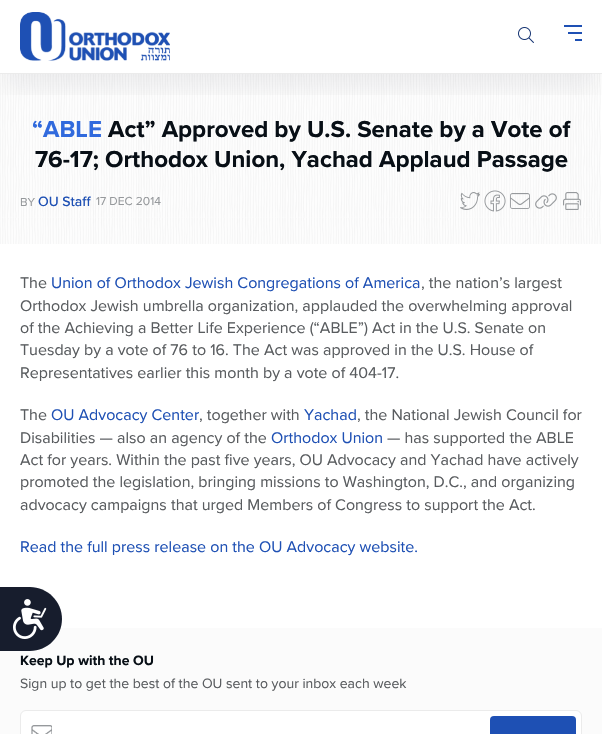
void draw(SkCanvas* canvas) {
  SkPaint paint;
  paint.setAntiAlias(true);
  auto face = [&](const char* family, int weight, float size, bool italic = false) {
    SkFontStyle style(weight, SkFontStyle::kNormal_Width,
      italic ? SkFontStyle::kItalic_Slant : SkFontStyle::kUpright_Slant);
    SkFont result(fontMgr->matchFamilyStyle(family, style), size);
    result.setSubpixel(true);
    return result;
  };
  auto paste = [&](const char* path, float x, float y, float w, float h) {
    auto image = SkImages::DeferredFromEncodedData(SkData::MakeFromFileName(path));
    canvas->drawImageRect(image, SkRect::MakeXYWH(x, y, w, h), SkSamplingOptions());
  };
  auto shape = [&](const char* data, bool evenOdd = false) {
    SkPath result = *SkParsePath::FromSVGString(data);
    if (evenOdd) result.setFillType(SkPathFillType::kEvenOdd);
    return result;
  };
  canvas->clear(0xffffffff);
  paste("img/3.png", 0, 74, 601, 170);
  canvas->save();
  canvas->clipRect(SkRect::MakeXYWH(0, 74, 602, 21));
  paint.setColor(0x0f101828);
  paint.setMaskFilter(SkMaskFilter::MakeBlur(kNormal_SkBlurStyle, 12));
  canvas->drawRect(SkRect::MakeXYWH(4, 24, 594, 66), paint);
  paint.setMaskFilter(nullptr);
  canvas->restore();
  paint.setColor(0xffebebeb);
  canvas->drawRect(SkRect::MakeXYWH(0, 73, 602, 1), paint);
  paste("img/1.png", 20, 12, 150, 49);
  paste("img/2.png", 518, 27, 16, 16);
  {
    const struct { float x, y, w, h; SkColor color; } items[] = {
      {564, 25, 18, 2, 0xff1e50b4},
      {568, 32, 14, 2, 0xff1e50b4},
      {575, 39, 7, 2, 0xff1e50b4},
    };
    for (auto [x, y, w, h, color] : items) {
      paint.setColor(color);
      canvas->drawRect(SkRect::MakeXYWH(x, y, w, h), paint);
    }
  }
  paste("img/4.png", 460, 192, 20, 18);
  paste("img/5.png", 484, 190, 22, 22);
  paste("img/6.png", 510, 193, 20, 16);
  paste("img/7.png", 535, 193, 22, 16);
  paste("img/8.png", 563, 192, 18, 18);
  paint.setColor(0xfffbfbfb);
  canvas->drawRect(SkRect::MakeXYWH(0, 628, 602, 106), paint);
  paint.setColor(0xff171d2d);
  canvas->drawPath(shape("M0 587H30C47.5 587 62 601.5 62 619C62 636.5 47.5 651 30 651H0Z"), paint);
  paste("img/9.png", 13, 599, 34, 40);
  paint.setColor(0xffffffff);
  canvas->drawRoundRect(SkRect::MakeXYWH(20.5f, 710.5f, 561, 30), 5.5f, 5.5f, paint);
  paint.setStroke(true);
  paint.setStrokeWidth(1);
  paint.setColor(0xffebebeb);
  canvas->drawRoundRect(SkRect::MakeXYWH(20.5f, 710.5f, 561, 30), 5.5f, 5.5f, paint);
  paste("img/10.png", 31, 725, 21, 9);
  paint.setStroke(false);
  paint.setColor(0xff1e50b4);
  canvas->drawRoundRect(SkRect::MakeXYWH(490, 716, 86, 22), 4, 4, paint);
  auto f0 = face("Proxima Nova", 700, 24);
  paint.setColor(0xff316add);
  canvas->drawString("“ABLE", 32, 137, f0, paint);
  paint.setColor(0xff080f16);
  canvas->drawString("Act” Approved by U.S. Senate by a Vote of", 108, 137, f0, paint);
  canvas->drawString("76-17; Orthodox Union, Yachad Applaud Passage", 35, 167, f0, paint);
  auto f1 = face("Proxima Nova", 400, 12);
  paint.setColor(0xff96999c);
  canvas->drawString("BY", 20, 206, f1, paint);
  auto f2 = face("Proxima Nova", 500, 14);
  paint.setColor(0xff1e50b4);
  canvas->drawString("OU Staff", 38, 206, f2, paint);
  paint.setColor(0xff96999c);
  canvas->drawString("17 DEC 2014", 96, 205, f1, paint);
  auto f3 = face("Proxima Nova", 400, 16);
  paint.setColor(0xff595c5f);
  canvas->drawString("The", 20, 288, f3, paint);
  paint.setColor(0xff1e50b4);
  canvas->drawString("Union of Orthodox Jewish Congregations of America", 51, 288, f3, paint);
  paint.setColor(0xff595c5f);
  {
    const struct { const char* s; float x, y; } items[] = {
      {", the nation’s largest", 421, 288},
      {"Orthodox Jewish umbrella organization, applauded the overwhelming approval", 20, 311},
      {"of the Achieving a Better Life Experience (“ABLE”) Act in the U.S. Senate on", 20, 333},
      {"Tuesday by a vote of 76 to 16. The Act was approved in the U.S. House of", 20, 355},
      {"Representatives earlier this month by a vote of 404-17.", 20, 378},
      {"The", 20, 420},
    };
    for (auto [s, x, y] : items) {
      canvas->drawString(s, x, y, f3, paint);
    }
  }
  paint.setColor(0xff1e50b4);
  canvas->drawString("OU Advocacy Center", 51, 420, f3, paint);
  paint.setColor(0xff595c5f);
  canvas->drawString(", together with", 199, 420, f3, paint);
  paint.setColor(0xff1e50b4);
  canvas->drawString("Yachad", 304, 420, f3, paint);
  paint.setColor(0xff595c5f);
  canvas->drawString(", the National Jewish Council for", 357, 420, f3, paint);
  canvas->drawString("Disabilities — also an agency of the", 20, 443, f3, paint);
  paint.setColor(0xff1e50b4);
  canvas->drawString("Orthodox Union", 271, 443, f3, paint);
  paint.setColor(0xff595c5f);
  {
    const struct { const char* s; float x, y; } items[] = {
      {"— has supported the ABLE", 387, 443},
      {"Act for years. Within the past five years, OU Advocacy and Yachad have actively", 20, 465},
      {"promoted the legislation, bringing missions to Washington, D.C., and organizing", 20, 487},
      {"advocacy campaigns that urged Members of Congress to support the Act.", 20, 510},
    };
    for (auto [s, x, y] : items) {
      canvas->drawString(s, x, y, f3, paint);
    }
  }
  paint.setColor(0xff1e50b4);
  canvas->drawString("Read the full press release on the OU Advocacy website.", 20, 552, f3, paint);
  auto f4 = face("Proxima Nova", 700, 14);
  paint.setColor(0xff080f16);
  canvas->drawString("Keep Up with the OU", 20, 665, f4, paint);
  auto f5 = face("Proxima Nova", 400, 14);
  paint.setColor(0xff595c5f);
  canvas->drawString("Sign up to get the best of the OU sent to your inbox each week", 20, 688, f5, paint);
}
